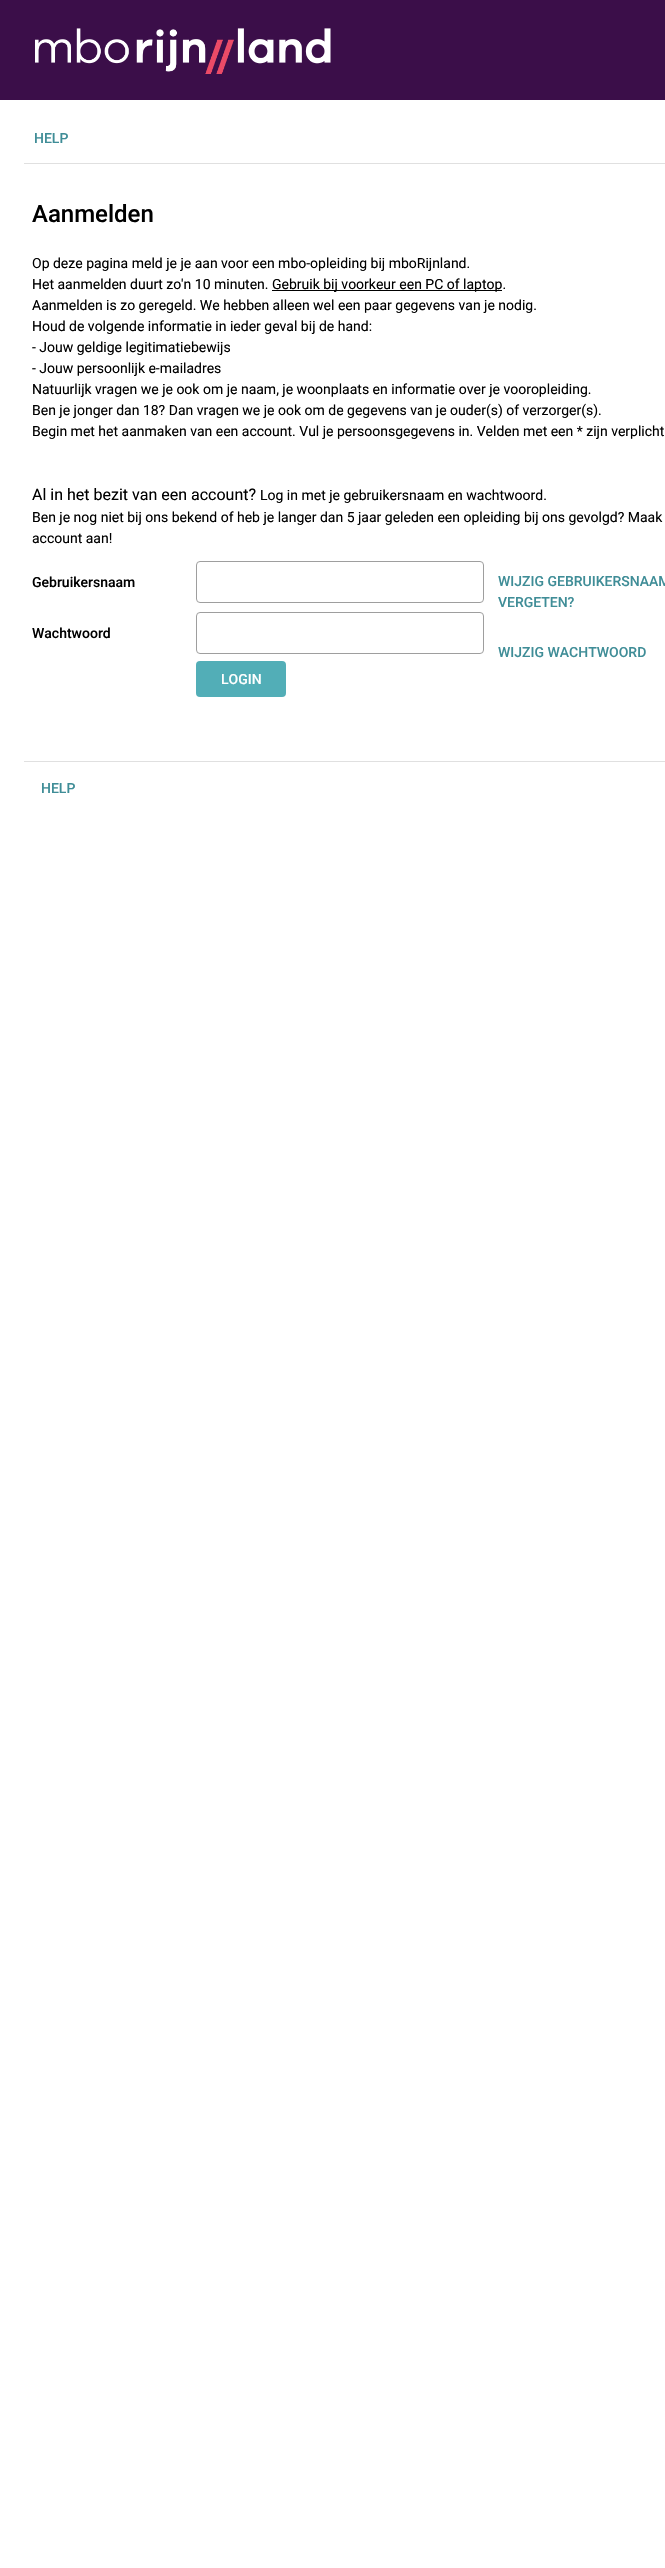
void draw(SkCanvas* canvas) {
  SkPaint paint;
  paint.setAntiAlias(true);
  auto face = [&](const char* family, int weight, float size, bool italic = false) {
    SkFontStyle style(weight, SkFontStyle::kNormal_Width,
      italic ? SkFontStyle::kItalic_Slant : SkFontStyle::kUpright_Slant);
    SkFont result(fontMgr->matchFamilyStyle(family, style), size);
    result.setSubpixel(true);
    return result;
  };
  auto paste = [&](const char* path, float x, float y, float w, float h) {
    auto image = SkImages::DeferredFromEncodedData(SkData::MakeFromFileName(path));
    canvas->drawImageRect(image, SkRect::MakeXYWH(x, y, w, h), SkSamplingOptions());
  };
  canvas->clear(0xffffffff);
  paint.setColor(0xff3b0e49);
  canvas->drawRect(SkRect::MakeXYWH(0, 0, 665, 100), paint);
  paste("img/1.png", 35, 28, 296, 46);
  paint.setColor(0xffe0e0e0);
  canvas->drawRect(SkRect::MakeXYWH(24, 163, 641, 1), paint);
  paint.setColor(0xff000000);
  canvas->drawRect(SkRect::MakeXYWH(272, 290, 230, 1), paint);
  paint.setStroke(true);
  paint.setStrokeWidth(1);
  paint.setColor(0xff9e9e9e);
  canvas->drawRoundRect(SkRect::MakeXYWH(196.5f, 561.5f, 287, 41), 3.5f, 3.5f, paint);
  canvas->drawRoundRect(SkRect::MakeXYWH(196.5f, 612.5f, 287, 41), 3.5f, 3.5f, paint);
  paint.setStroke(false);
  paint.setColor(0xff52aeb7);
  canvas->drawRoundRect(SkRect::MakeXYWH(196, 661, 90, 36), 4, 4, paint);
  paint.setColor(0xffe0e0e0);
  canvas->drawRect(SkRect::MakeXYWH(24, 761, 641, 1), paint);
  auto f0 = face("Roboto", 500, 14);
  paint.setColor(0xff3f8d97);
  canvas->drawString("HELP", 34, 143, f0, paint);
  auto f1 = face("Roboto", 500, 24);
  paint.setColor(0xff000000);
  canvas->drawString("Aanmelden", 32, 222, f1, paint);
  auto f2 = face("Roboto", 400, 14);
  {
    const struct { const char* s; float x, y; } items[] = {
      {"Op deze pagina meld je je aan voor een mbo-opleiding bij mboRijnland.", 32, 268},
      {"Het aanmelden duurt zo'n 10 minuten.", 32, 289},
      {"Gebruik bij voorkeur een PC of laptop.", 272, 289},
      {"Aanmelden is zo geregeld. We hebben alleen wel een paar gegevens van je nodig.", 32, 310},
      {"Houd de volgende informatie in ieder geval bij de hand:", 32, 331},
      {"- Jouw geldige legitimatiebewijs", 32, 352},
      {"- Jouw persoonlijk e-mailadres", 32, 373},
      {"Natuurlijk vragen we je ook om je naam, je woonplaats en informatie over je vooropleiding.", 32, 394},
      {"Ben je jonger dan 18? Dan vragen we je ook om de gegevens van je ouder(s) of verzorger(s).", 32, 415},
      {"Begin met het aanmaken van een account. Vul je persoonsgegevens in. Velden met een * zijn verplicht", 32, 436},
    };
    for (auto [s, x, y] : items) {
      canvas->drawString(s, x, y, f2, paint);
    }
  }
  auto f3 = face("Roboto", 400, 16);
  canvas->drawString("Al in het bezit van een account?", 32, 500, f3, paint);
  {
    const struct { const char* s; float x, y; } items[] = {
      {"Log in met je gebruikersnaam en wachtwoord.", 260, 500},
      {"Ben je nog niet bij ons bekend of heb je langer dan 5 jaar geleden een opleiding bij ons gevolgd? Maak", 32, 522},
      {"account aan!", 32, 543},
    };
    for (auto [s, x, y] : items) {
      canvas->drawString(s, x, y, f2, paint);
    }
  }
  canvas->drawString("Gebruikersnaam", 32, 587, f0, paint);
  canvas->drawString("Wachtwoord", 32, 638, f0, paint);
  paint.setColor(0xffffffff);
  canvas->drawString("LOGIN", 221, 684, f0, paint);
  paint.setColor(0xff3f8d97);
  {
    const struct { const char* s; float x, y; } items[] = {
      {"WIJZIG GEBRUIKERSNAAM", 498, 586},
      {"VERGETEN?", 498, 607},
      {"WIJZIG WACHTWOORD", 498, 657},
      {"HELP", 41, 793},
    };
    for (auto [s, x, y] : items) {
      canvas->drawString(s, x, y, f0, paint);
    }
  }
}
